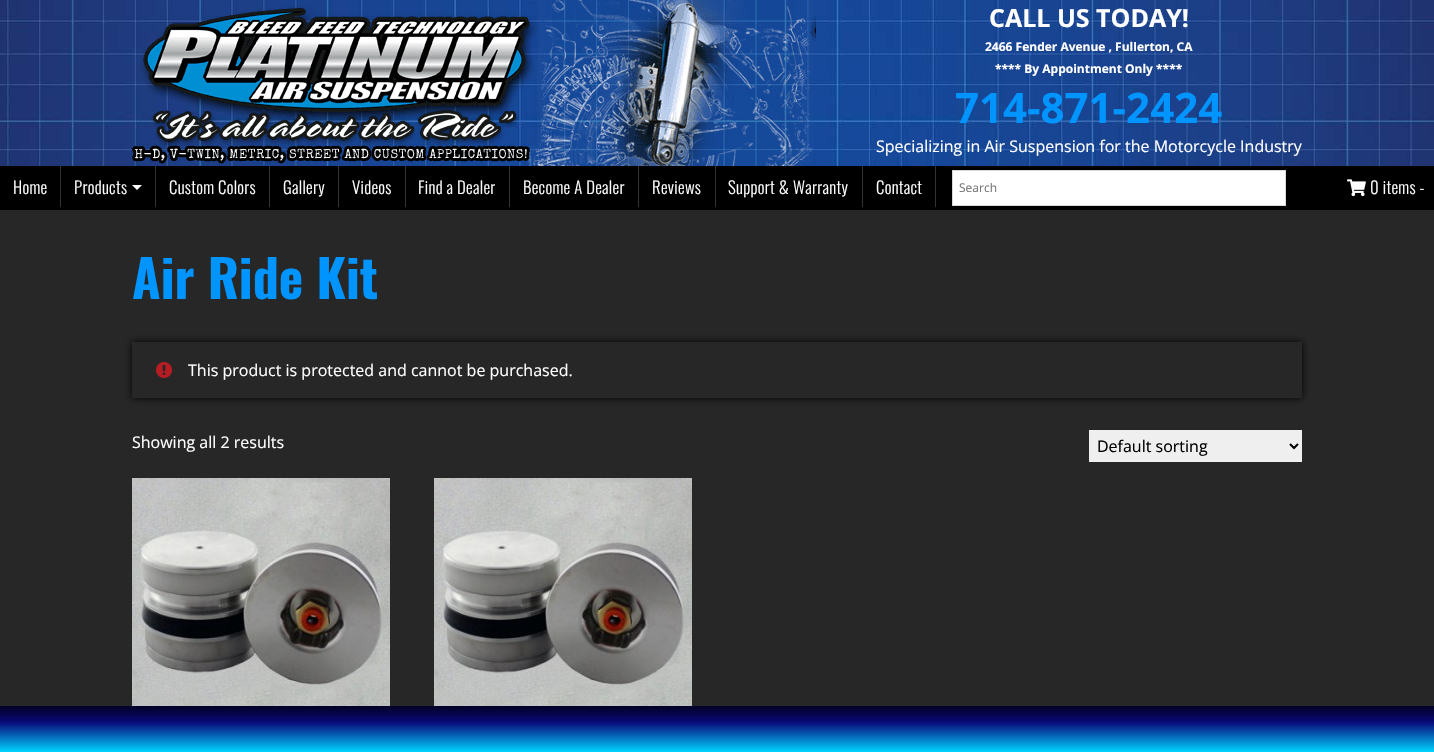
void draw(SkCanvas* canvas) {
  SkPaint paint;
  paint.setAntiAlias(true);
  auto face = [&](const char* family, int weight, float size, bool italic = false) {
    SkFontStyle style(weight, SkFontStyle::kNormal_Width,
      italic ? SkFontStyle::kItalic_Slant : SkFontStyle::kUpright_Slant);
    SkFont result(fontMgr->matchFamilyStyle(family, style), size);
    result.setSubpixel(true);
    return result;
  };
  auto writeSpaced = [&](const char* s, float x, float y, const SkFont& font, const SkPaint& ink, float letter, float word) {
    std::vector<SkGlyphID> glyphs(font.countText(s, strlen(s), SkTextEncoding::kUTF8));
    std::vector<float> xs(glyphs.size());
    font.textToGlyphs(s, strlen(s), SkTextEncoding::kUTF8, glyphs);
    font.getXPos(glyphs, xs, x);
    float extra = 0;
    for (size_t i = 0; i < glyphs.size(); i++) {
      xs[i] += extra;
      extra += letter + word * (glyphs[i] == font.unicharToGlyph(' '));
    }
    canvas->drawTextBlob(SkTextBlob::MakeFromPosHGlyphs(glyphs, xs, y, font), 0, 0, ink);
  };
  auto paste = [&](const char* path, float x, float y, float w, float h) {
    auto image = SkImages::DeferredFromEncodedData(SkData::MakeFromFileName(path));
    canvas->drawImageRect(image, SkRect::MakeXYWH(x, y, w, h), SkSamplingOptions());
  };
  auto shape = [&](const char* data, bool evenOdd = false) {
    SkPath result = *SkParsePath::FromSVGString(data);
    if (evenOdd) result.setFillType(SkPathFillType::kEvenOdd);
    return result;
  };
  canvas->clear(0xff272727);
  paste("img/1.png", 0, 0, 1434, 166);
  paste("img/2.png", 132, 0, 684, 166);
  {
    const struct { float x, y, w, h; SkColor color; } items[] = {
      {0, 166, 1434, 44, 0xff000000},
      {60, 166, 1, 41, 0xff333333},
      {155, 166, 1, 41, 0xff333333},
    };
    for (auto [x, y, w, h, color] : items) {
      paint.setColor(color);
      canvas->drawRect(SkRect::MakeXYWH(x, y, w, h), paint);
    }
  }
  paint.setColor(0xffffffff);
  canvas->drawPath(shape("M132 185H142L137 190Z"), paint);
  {
    const struct { float x, y, w, h; SkColor color; } items[] = {
      {269, 166, 1, 41, 0xff333333},
      {338, 166, 1, 41, 0xff333333},
      {405, 166, 1, 41, 0xff333333},
      {509, 166, 1, 41, 0xff333333},
      {638, 166, 1, 41, 0xff333333},
      {715, 166, 1, 41, 0xff333333},
      {862, 166, 1, 41, 0xff333333},
      {935, 166, 1, 41, 0xff333333},
    };
    for (auto [x, y, w, h, color] : items) {
      paint.setColor(color);
      canvas->drawRect(SkRect::MakeXYWH(x, y, w, h), paint);
    }
  }
  paint.setColor(0xffffffff);
  canvas->drawRect(SkRect::MakeXYWH(952.5f, 170.5f, 333, 35), paint);
  paint.setStroke(true);
  paint.setStrokeWidth(1);
  paint.setColor(0xffd8d8d8);
  canvas->drawRect(SkRect::MakeXYWH(952.5f, 170.5f, 333, 35), paint);
  paste("img/3.png", 1347, 179, 19, 18);
  canvas->save();
  canvas->clipPath(shape("M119 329H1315V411H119ZM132 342H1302V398H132Z", true), true);
  paint.setStroke(false);
  paint.setColor(0xff000000);
  paint.setMaskFilter(SkMaskFilter::MakeBlur(kNormal_SkBlurStyle, 4));
  canvas->drawRect(SkRect::MakeXYWH(132, 342, 1170, 56), paint);
  paint.setMaskFilter(nullptr);
  canvas->restore();
  paste("img/4.png", 156, 362, 16, 16);
  paint.setColor(0xffefefef);
  canvas->drawRect(SkRect::MakeXYWH(1089, 430, 213, 32), paint);
  paint.setStroke(true);
  paint.setStrokeWidth(2);
  paint.setColor(0xff000000);
  canvas->drawPath(shape("M1290 444L1294 448L1298 444"), paint);
  paste("img/5.png", 132, 478, 258, 228);
  paste("img/5.png", 434, 478, 258, 228);
  paint.setStroke(false);
  {
    const SkColor colors[] = {0xff020024, 0xff090979, 0xff00d4ff};
    const float stops[] = {0, 0.35f, 1};
    const SkPoint ends[] = {{717, 706}, {717, 752}};
    paint.setShader(SkGradientShader::MakeLinear(ends, colors, stops, 3, SkTileMode::kClamp));
    paint.setAlpha(255);
  }
  canvas->drawRect(SkRect::MakeXYWH(0, 706, 1434, 46), paint);
  auto f0 = face("Open Sans", 700, 25);
  paint.setShader(nullptr);
  paint.setColor(0xffffffff);
  canvas->drawString("CALL US TODAY!", 989, 27, f0, paint);
  auto f1 = face("Open Sans", 700, 12);
  canvas->drawString("2466 Fender Avenue , Fullerton, CA", 985, 51, f1, paint);
  canvas->drawString("**** By Appointment Only ****", 995, 73, f1, paint);
  auto f2 = face("Open Sans", 700, 42);
  paint.setColor(0xff0094ff);
  canvas->drawString("714-871-2424", 955, 123, f2, paint);
  auto f3 = face("Open Sans", 400, 16);
  paint.setColor(0xffffffff);
  canvas->drawString("Specializing in Air Suspension for the Motorcycle Industry", 876, 152, f3, paint);
  auto f4 = face("Oswald", 300, 16.75f);
  {
    const struct { const char* s; float x, y; } items[] = {
      {"Home", 13, 194},
      {"Products", 74, 194},
      {"Custom Colors", 169, 194},
      {"Gallery", 283, 194},
      {"Videos", 352, 194},
      {"Find a Dealer", 418, 194},
      {"Become A Dealer", 523, 194},
      {"Reviews", 652, 194},
      {"Support & Warranty", 728, 194},
      {"Contact", 876, 194},
    };
    for (auto [s, x, y] : items) {
      writeSpaced(s, x, y, f4, paint, 0.3f, 0);
    }
  }
  auto f5 = face("Open Sans", 400, 12);
  paint.setColor(0xff757575);
  canvas->drawString("Search", 959, 192, f5, paint);
  paint.setColor(0xffffffff);
  writeSpaced("0 items -", 1370, 194, f4, paint, 0.3f, 0);
  auto f6 = face("Oswald", 700, 52);
  paint.setColor(0xff0094ff);
  canvas->drawString("Air Ride Kit", 132, 299, f6, paint);
  paint.setColor(0xffffffff);
  canvas->drawString("This product is protected and cannot be purchased.", 188, 376, f3, paint);
  canvas->drawString("Showing all 2 results", 132, 448, f3, paint);
  paint.setColor(0xff000000);
  canvas->drawString("Default sorting", 1097, 452, f3, paint);
}
